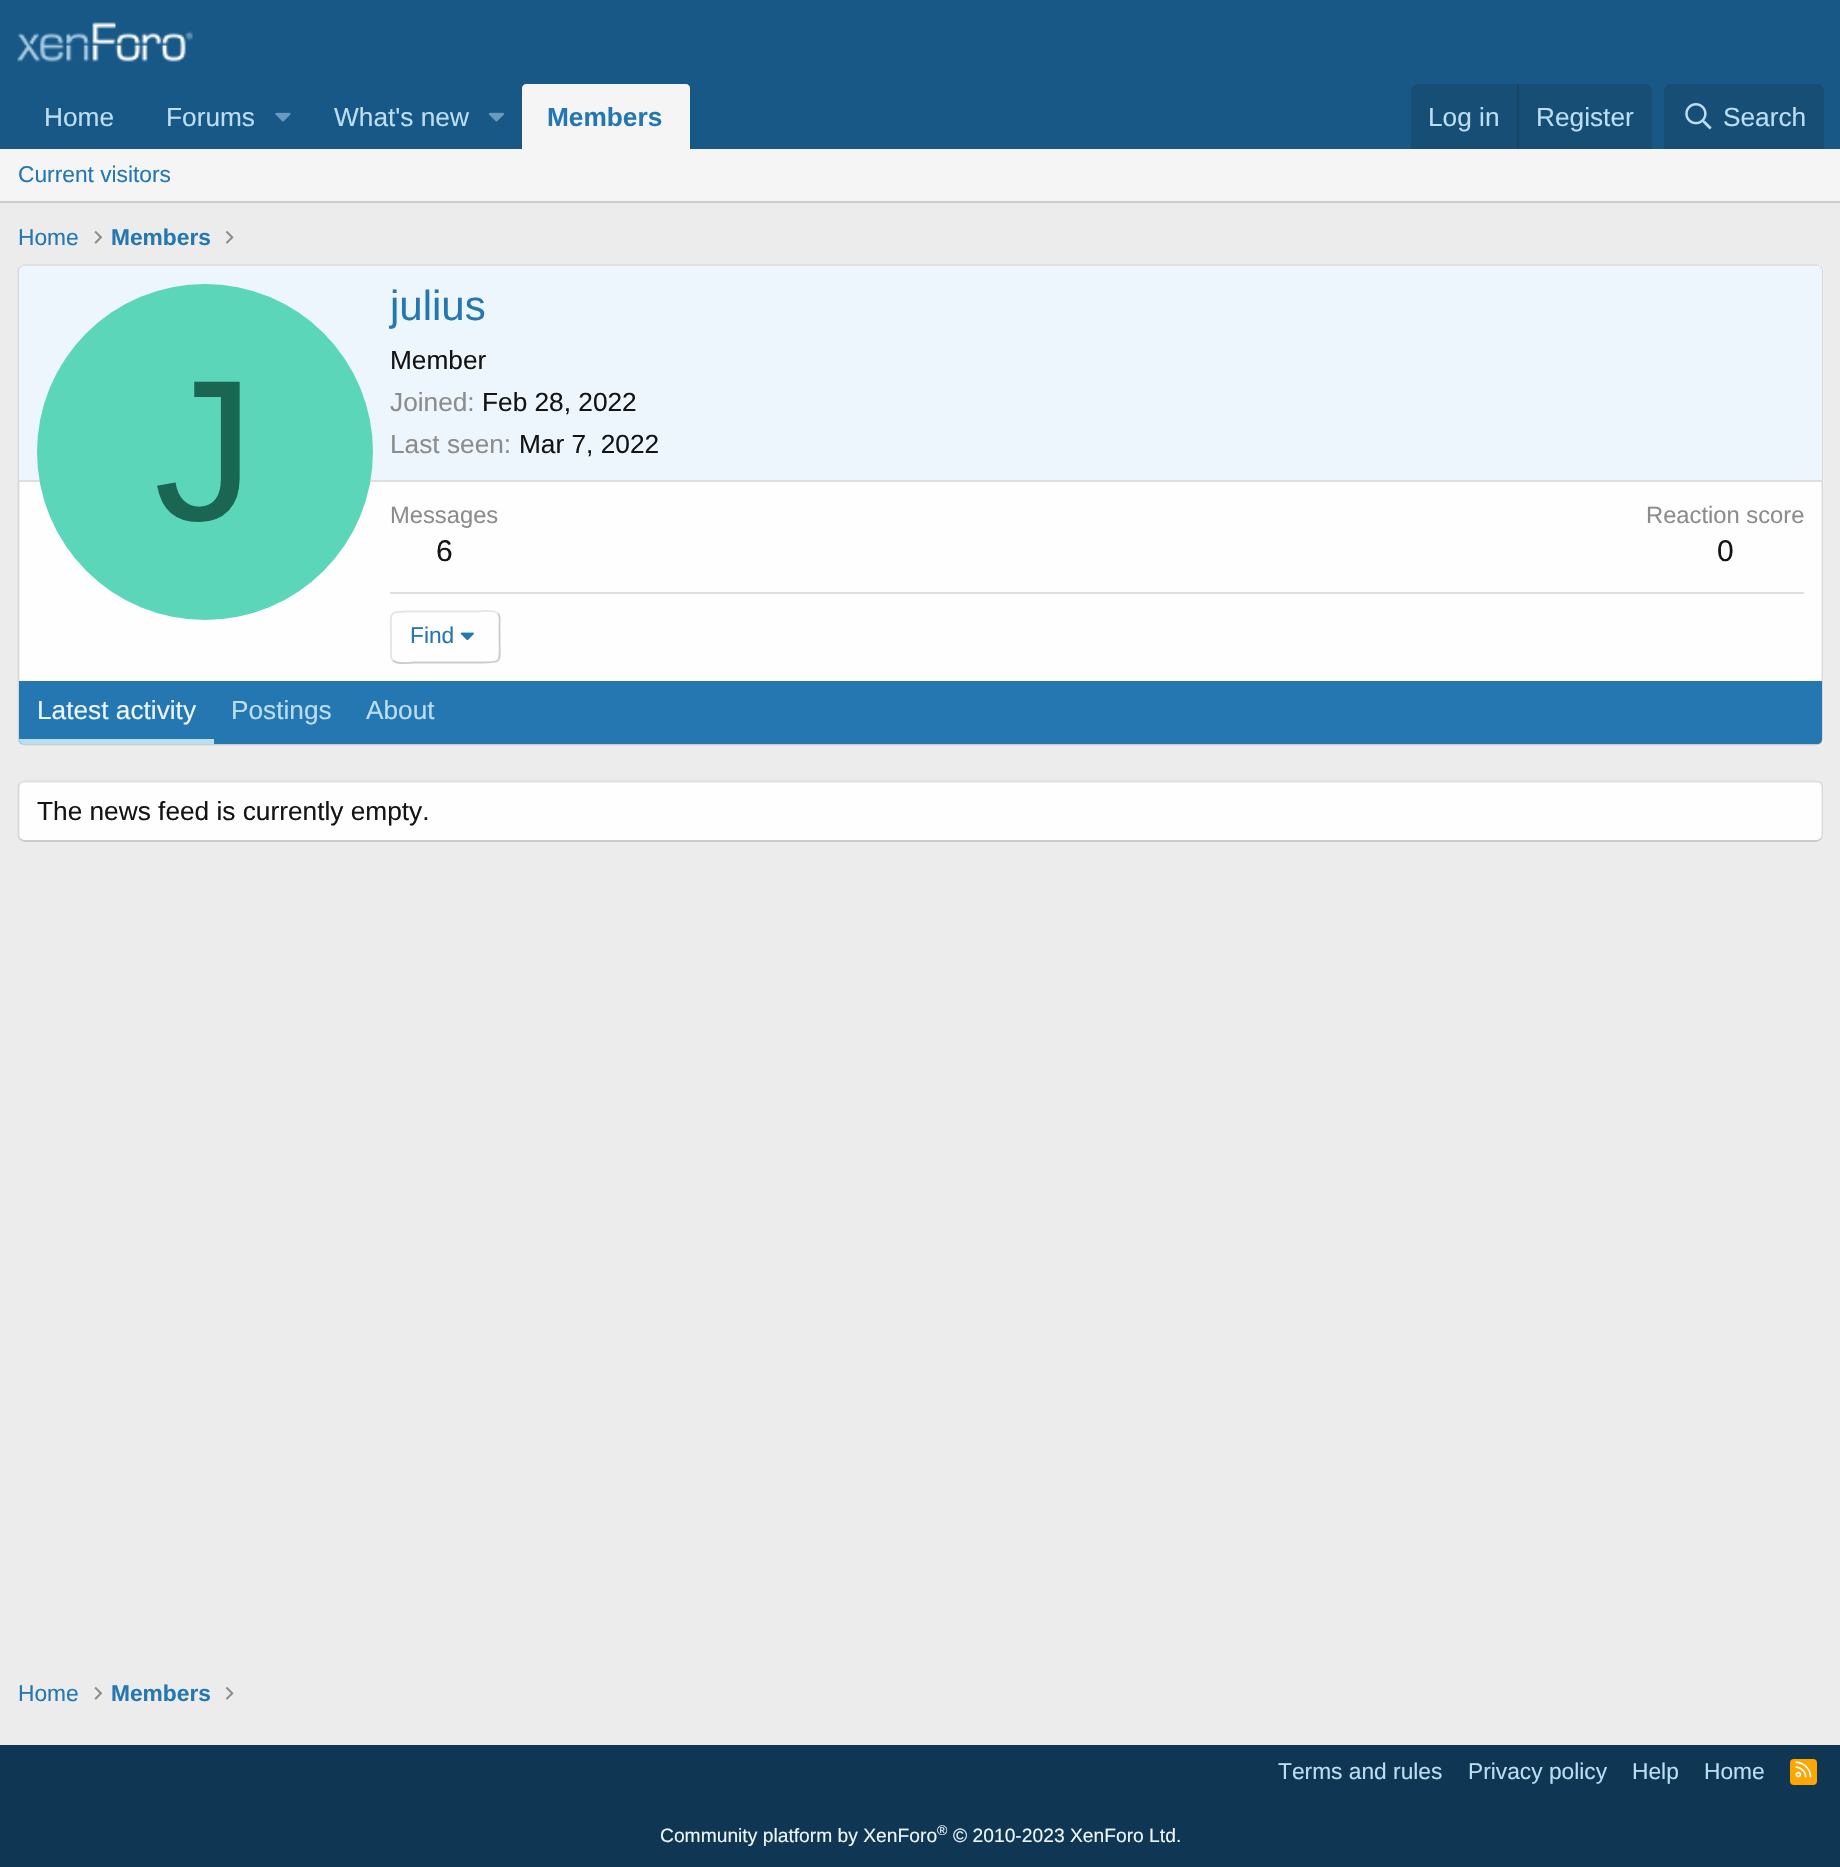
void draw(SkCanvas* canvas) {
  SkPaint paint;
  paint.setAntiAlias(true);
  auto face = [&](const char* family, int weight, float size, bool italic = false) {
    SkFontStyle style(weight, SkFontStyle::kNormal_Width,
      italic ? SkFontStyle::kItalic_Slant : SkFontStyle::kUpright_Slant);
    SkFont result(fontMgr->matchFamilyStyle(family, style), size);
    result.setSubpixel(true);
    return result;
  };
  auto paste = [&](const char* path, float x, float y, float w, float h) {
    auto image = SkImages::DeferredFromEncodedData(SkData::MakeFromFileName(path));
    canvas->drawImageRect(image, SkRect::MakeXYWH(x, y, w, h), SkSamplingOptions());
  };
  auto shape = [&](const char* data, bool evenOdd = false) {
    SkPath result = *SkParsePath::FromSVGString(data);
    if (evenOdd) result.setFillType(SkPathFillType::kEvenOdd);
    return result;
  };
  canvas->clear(0xffececec);
  paint.setColor(0xff185886);
  canvas->drawRect(SkRect::MakeXYWH(0, 0, 1840, 149), paint);
  paste("img/1.png", 17, 22, 176, 40);
  paste("img/2.png", 275, 112, 16, 10);
  paste("img/3.png", 488, 112, 16, 10);
  paint.setColor(0xfff5f5f5);
  canvas->drawPath(shape("M526 84H686C688 84 690 86 690 88V149H522V88C522 86 524 84 526 84Z"), paint);
  paint.setColor(0xff174e75);
  canvas->drawPath(shape("M1418 84H1645C1649 84 1652 87 1652 91V149H1411V91C1411 87 1414 84 1418 84Z"), paint);
  paint.setColor(0xff174566);
  canvas->drawRect(SkRect::MakeXYWH(1517, 84, 2, 65), paint);
  paint.setColor(0xff174e75);
  canvas->drawPath(shape("M1671 84H1817C1821 84 1824 87 1824 91V149H1664V91C1664 87 1667 84 1671 84Z"), paint);
  paste("img/4.png", 1685, 103, 27, 27);
  paint.setColor(0xfff5f5f5);
  canvas->drawRect(SkRect::MakeXYWH(0, 149, 1840, 52), paint);
  paint.setColor(0xffcbcbcb);
  canvas->drawRect(SkRect::MakeXYWH(0, 201, 1840, 2), paint);
  paste("img/5.png", 94, 231, 9, 13);
  paste("img/6.png", 225, 231, 9, 13);
  paint.setColor(0xfffefefe);
  canvas->drawRoundRect(SkRect::MakeXYWH(18, 264, 1806, 482), 7, 7, paint);
  paint.setStroke(true);
  paint.setStrokeWidth(1.8f);
  paint.setColor(0xffdfdfdf);
  canvas->drawPath(shape("M20 267C21.5 266 23 265 24.5 265H1816.5C1818 265 1819.5 266 1821 267"), paint);
  paint.setColor(0xffd8d8d8);
  canvas->drawPath(shape("M1821 267C1822 268 1822.5 269.5 1822.5 271V738.5C1822.5 740 1822 741.5 1821 743"), paint);
  paint.setColor(0xffcbcbcb);
  canvas->drawPath(shape("M1821 743C1819.5 744 1818 744.5 1816.5 744.5H24.5C23 744.5 21.5 744 20 743"), paint);
  paint.setColor(0xffd8d8d8);
  canvas->drawPath(shape("M20 743C19 741.5 18.5 740 18.5 738.5V271C18.5 269.5 19 268 20 267"), paint);
  paint.setStroke(false);
  paint.setColor(0xffedf6fd);
  canvas->drawPath(shape("M24 266H1817C1820 266 1822 268 1822 271V481H19V271C19 268 21 266 24 266Z"), paint);
  paint.setColor(0xffdfdfdf);
  canvas->drawRect(SkRect::MakeXYWH(19, 480, 1803, 2), paint);
  paint.setColor(0xff5cd6b8);
  canvas->drawCircle(205, 452, 168, paint);
  paint.setColor(0xffdfdfdf);
  canvas->drawRect(SkRect::MakeXYWH(390, 592, 1414, 2), paint);
  paint.setStroke(true);
  paint.setColor(0xffcbcbcb);
  canvas->drawPath(shape("M498 613.5C500.5 616 499.5 621 499.5 624V637C499.5 664 504 662.5 477.5 662.5H413.5C412.5 662.5 397.5 665 393 660.5"), paint);
  paint.setColor(0xffe5e5e5);
  canvas->drawPath(shape("M393 660.5C390 658 391 653 391 650V637C391 610 386.5 611.5 413.5 611.5H477.5C478.5 611.5 493.5 609 498 613.5"), paint);
  paste("img/7.png", 460, 632, 14, 9);
  paint.setStroke(false);
  paint.setColor(0xff2577b1);
  canvas->drawPath(shape("M19 681H1822V739C1822 742 1820 744 1817 744H24C21 744 19 742 19 739Z"), paint);
  paint.setColor(0xffbcdef5);
  canvas->drawPath(shape("M19 739H214V744H24C21 744 19 742 19 739Z"), paint);
  paint.setColor(0xfffefefe);
  canvas->drawRoundRect(SkRect::MakeXYWH(18, 781, 1806, 61), 7, 7, paint);
  paint.setStroke(true);
  paint.setColor(0xffdfdfdf);
  canvas->drawPath(shape("M20 783C21.5 782 23 781.5 24.5 781.5H1816.5C1818 781.5 1819.5 782 1821 783"), paint);
  paint.setColor(0xffd8d8d8);
  canvas->drawPath(shape("M1821 783C1822 784.5 1822.5 786 1822.5 787.5V835C1822.5 836.5 1822 838 1821 839"), paint);
  paint.setColor(0xffcbcbcb);
  canvas->drawPath(shape("M1821 839C1819.5 840 1818 841 1816.5 841H24.5C23 841 21.5 840 20 839"), paint);
  paint.setColor(0xffd8d8d8);
  canvas->drawPath(shape("M20 839C19 838 18.5 836.5 18.5 835V787.5C18.5 786 19 784.5 20 783"), paint);
  paste("img/5.png", 94, 1687, 9, 13);
  paste("img/6.png", 225, 1687, 9, 13);
  paint.setStroke(false);
  paint.setColor(0xff0f3652);
  canvas->drawRect(SkRect::MakeXYWH(0, 1745, 1840, 122), paint);
  paint.setColor(0xffffa500);
  canvas->drawRoundRect(SkRect::MakeXYWH(1790, 1759, 27, 26), 4, 4, paint);
  paste("img/8.png", 1795, 1761, 17, 17);
  auto f0 = face("Liberation Sans", 400, 26.25f);
  paint.setColor(0xffbcdef5);
  {
    const struct { const char* s; float x, y; } items[] = {
      {"Home", 44, 126},
      {"Forums", 166, 126},
      {"What's new", 334, 126},
    };
    for (auto [s, x, y] : items) {
      canvas->drawString(s, x, y, f0, paint);
    }
  }
  auto f1 = face("Liberation Sans", 700, 26.25f);
  paint.setColor(0xff2577b1);
  canvas->drawString("Members", 547, 126, f1, paint);
  paint.setColor(0xffbcdef5);
  {
    const struct { const char* s; float x, y; } items[] = {
      {"Log in", 1428, 126},
      {"Register", 1536, 126},
      {"Search", 1723, 126},
    };
    for (auto [s, x, y] : items) {
      canvas->drawString(s, x, y, f0, paint);
    }
  }
  auto f2 = face("Liberation Sans", 400, 22.75f);
  paint.setColor(0xff2577b1);
  canvas->drawString("Current visitors", 18, 182, f2, paint);
  canvas->drawString("Home", 18, 245, f2, paint);
  auto f3 = face("Liberation Sans", 700, 22.75f);
  canvas->drawString("Members", 111, 245, f3, paint);
  auto f4 = face("Liberation Sans", 400, 201);
  paint.setColor(0xff1a6653);
  canvas->drawString("J", 154, 520, f4, paint);
  auto f5 = face("Liberation Sans", 400, 42);
  paint.setColor(0xff2577b1);
  canvas->drawString("julius", 390, 320, f5, paint);
  paint.setColor(0xff141414);
  canvas->drawString("Member", 390, 369, f0, paint);
  paint.setColor(0xff8c8c8c);
  canvas->drawString("Joined:", 390, 411, f0, paint);
  paint.setColor(0xff141414);
  canvas->drawString("Feb 28, 2022", 482, 411, f0, paint);
  paint.setColor(0xff8c8c8c);
  canvas->drawString("Last seen:", 390, 453, f0, paint);
  paint.setColor(0xff141414);
  canvas->drawString("Mar 7, 2022", 519, 453, f0, paint);
  auto f6 = face("Liberation Sans", 400, 23.75f);
  paint.setColor(0xff8c8c8c);
  canvas->drawString("Messages", 390, 523, f6, paint);
  auto f7 = face("Liberation Sans", 400, 30);
  paint.setColor(0xff141414);
  canvas->drawString("6", 436, 561, f7, paint);
  paint.setColor(0xff8c8c8c);
  canvas->drawString("Reaction score", 1646, 523, f6, paint);
  paint.setColor(0xff141414);
  canvas->drawString("0", 1717, 561, f7, paint);
  paint.setColor(0xff2577b1);
  canvas->drawString("Find", 410, 643, f2, paint);
  paint.setColor(0xffedf6fd);
  canvas->drawString("Latest activity", 37, 719, f0, paint);
  paint.setColor(0xffbcdef5);
  canvas->drawString("Postings", 231, 719, f0, paint);
  canvas->drawString("About", 366, 719, f0, paint);
  paint.setColor(0xff141414);
  canvas->drawString("The news feed is currently empty.", 37, 820, f0, paint);
  paint.setColor(0xff2577b1);
  canvas->drawString("Home", 18, 1701, f2, paint);
  canvas->drawString("Members", 111, 1701, f3, paint);
  paint.setColor(0xffbcdef5);
  {
    const struct { const char* s; float x, y; } items[] = {
      {"Terms and rules", 1278, 1779},
      {"Privacy policy", 1468, 1779},
      {"Help", 1632, 1779},
      {"Home", 1704, 1779},
    };
    for (auto [s, x, y] : items) {
      canvas->drawString(s, x, y, f2, paint);
    }
  }
  auto f8 = face("Liberation Sans", 400, 19.25f);
  paint.setColor(0xffedf6fd);
  canvas->drawString("Community platform by XenForo", 660, 1842, f8, paint);
  auto f9 = face("Liberation Sans", 400, 14);
  canvas->drawString("®", 937, 1835, f9, paint);
  canvas->drawString("© 2010-2023 XenForo Ltd.", 953, 1842, f8, paint);
}
